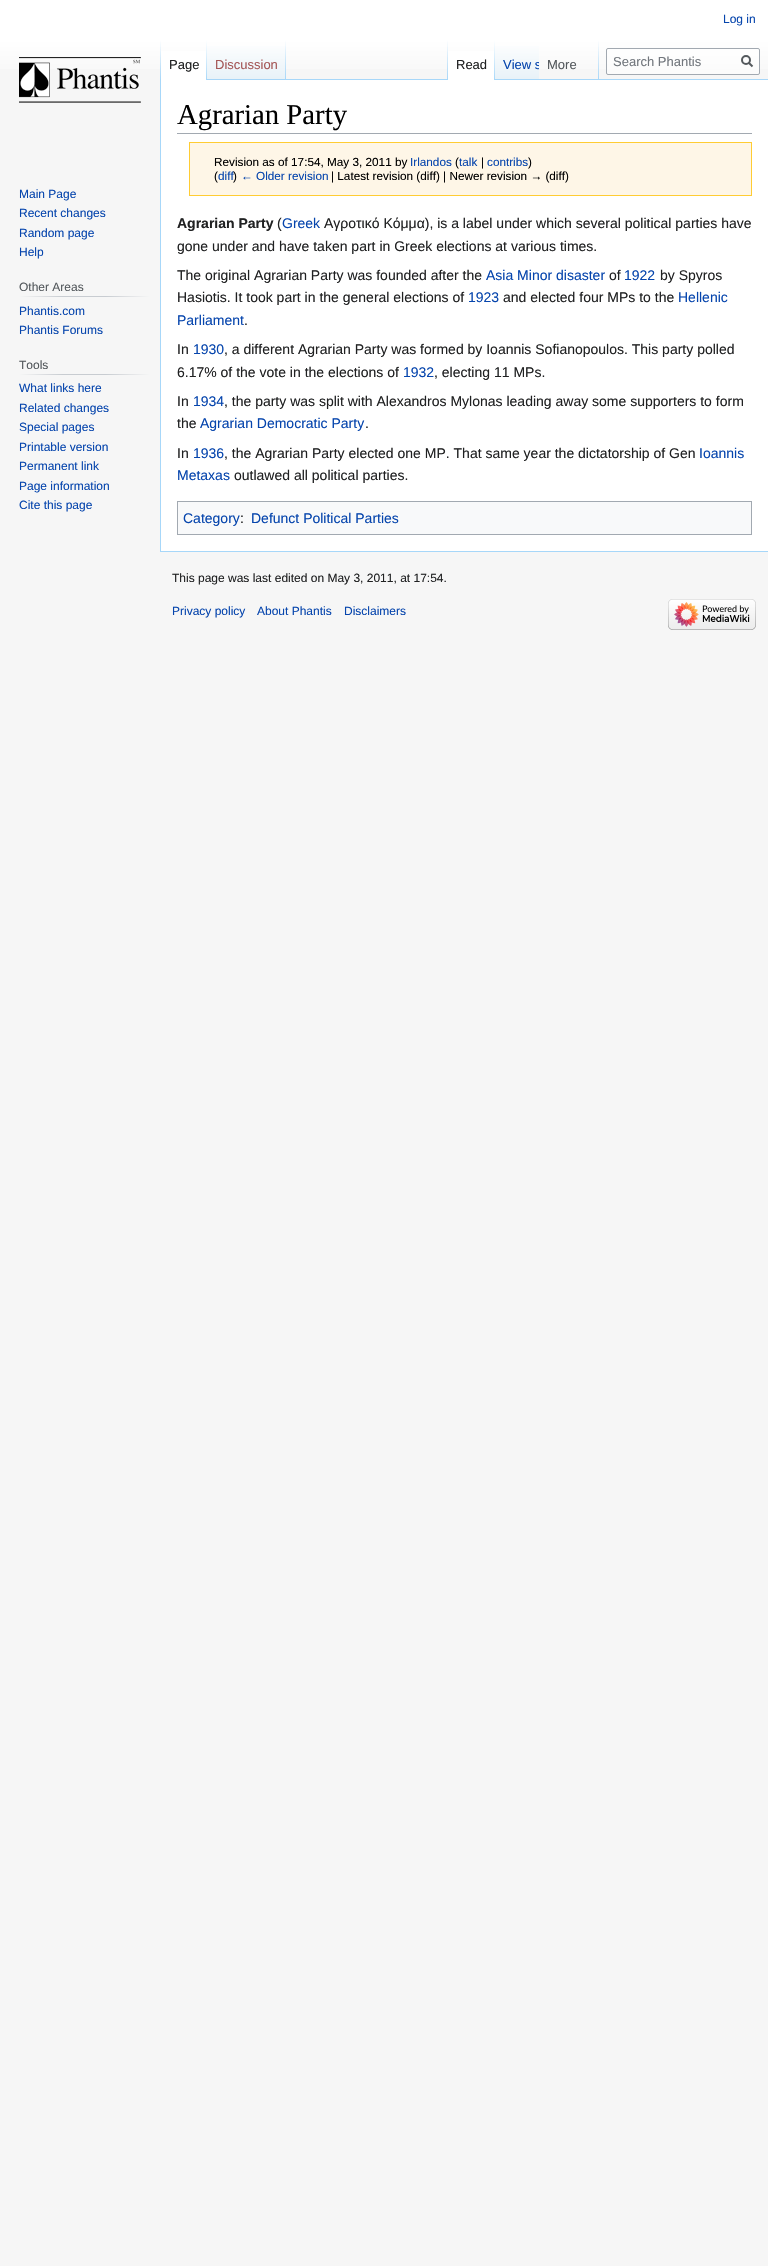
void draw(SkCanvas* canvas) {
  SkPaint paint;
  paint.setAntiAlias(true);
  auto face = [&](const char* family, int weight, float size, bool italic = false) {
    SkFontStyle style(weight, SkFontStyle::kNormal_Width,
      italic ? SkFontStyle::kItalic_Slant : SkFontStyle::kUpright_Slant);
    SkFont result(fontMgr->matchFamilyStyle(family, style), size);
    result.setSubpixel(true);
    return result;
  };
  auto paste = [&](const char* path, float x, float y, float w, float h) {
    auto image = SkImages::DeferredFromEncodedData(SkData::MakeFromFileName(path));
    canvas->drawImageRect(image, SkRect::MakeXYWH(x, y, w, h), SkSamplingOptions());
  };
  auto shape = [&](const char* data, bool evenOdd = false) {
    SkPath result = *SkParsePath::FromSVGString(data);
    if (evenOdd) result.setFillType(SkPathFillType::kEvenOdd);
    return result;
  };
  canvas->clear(0xfff6f6f6);
  {
    const SkColor colors[] = {0xffffffff, 0xfff6f6f6};
    const float stops[] = {0.5f, 1};
    const SkPoint ends[] = {{384, 0}, {384, 80}};
    paint.setShader(SkGradientShader::MakeLinear(ends, colors, stops, 2, SkTileMode::kClamp));
    paint.setAlpha(255);
  }
  canvas->drawRect(SkRect::MakeXYWH(0, 0, 768, 69), paint);
  paint.setShader(nullptr);
  paint.setColor(0xffa7d7f9);
  canvas->drawRect(SkRect::MakeXYWH(160, 551, 608, 1), paint);
  canvas->drawRect(SkRect::MakeXYWH(160, 79, 1, 473), paint);
  {
    const SkColor colors[] = {0x00a7d7f9, 0xffa7d7f9};
    const float stops[] = {0, 1};
    const SkPoint ends[] = {{161, 40}, {161, 80}};
    paint.setShader(SkGradientShader::MakeLinear(ends, colors, stops, 2, SkTileMode::kClamp));
    paint.setAlpha(255);
  }
  canvas->drawRect(SkRect::MakeXYWH(160, 40, 1, 40), paint);
  paint.setShader(nullptr);
  paint.setColor(0xffffffff);
  canvas->drawRect(SkRect::MakeXYWH(161, 51, 45, 29), paint);
  {
    const SkColor colors[] = {0xffffffff, 0xffa7d7f9};
    const float stops[] = {0, 1};
    const SkPoint ends[] = {{207, 40}, {207, 80}};
    paint.setShader(SkGradientShader::MakeLinear(ends, colors, stops, 2, SkTileMode::kClamp));
    paint.setAlpha(255);
  }
  canvas->drawRect(SkRect::MakeXYWH(206, 40, 1, 40), paint);
  {
    const SkColor colors[] = {0xff77c1f6, 0xffe8f2f8, 0xffffffff};
    const float stops[] = {0, 0.03f, 1};
    const SkPoint ends[] = {{247, 80}, {247, 40}};
    paint.setShader(SkGradientShader::MakeLinear(ends, colors, stops, 3, SkTileMode::kClamp));
    paint.setAlpha(255);
  }
  canvas->drawRect(SkRect::MakeXYWH(207, 46, 79, 34), paint);
  {
    const SkColor colors[] = {0x00a7d7f9, 0xffa7d7f9};
    const float stops[] = {0, 1};
    const SkPoint ends[] = {{286, 40}, {286, 80}};
    paint.setShader(SkGradientShader::MakeLinear(ends, colors, stops, 2, SkTileMode::kClamp));
    paint.setAlpha(255);
  }
  canvas->drawRect(SkRect::MakeXYWH(285, 40, 1, 40), paint);
  paint.setShader(nullptr);
  paint.setColor(0xffa7d7f9);
  canvas->drawRect(SkRect::MakeXYWH(286, 79, 482, 1), paint);
  {
    const SkColor colors[] = {0x00a7d7f9, 0xffa7d7f9};
    const float stops[] = {0, 1};
    const SkPoint ends[] = {{448, 40}, {448, 80}};
    paint.setShader(SkGradientShader::MakeLinear(ends, colors, stops, 2, SkTileMode::kClamp));
    paint.setAlpha(255);
  }
  canvas->drawRect(SkRect::MakeXYWH(447, 40, 1, 40), paint);
  paint.setShader(nullptr);
  paint.setColor(0xffffffff);
  canvas->drawRect(SkRect::MakeXYWH(448, 51, 46, 29), paint);
  {
    const SkColor colors[] = {0xffffffff, 0xffa7d7f9};
    const float stops[] = {0, 1};
    const SkPoint ends[] = {{495, 40}, {495, 80}};
    paint.setShader(SkGradientShader::MakeLinear(ends, colors, stops, 2, SkTileMode::kClamp));
    paint.setAlpha(255);
  }
  canvas->drawRect(SkRect::MakeXYWH(494, 40, 1, 40), paint);
  {
    const SkColor colors[] = {0xff77c1f6, 0xffe8f2f8, 0xffffffff};
    const float stops[] = {0, 0.03f, 1};
    const SkPoint ends[] = {{517, 80}, {517, 40}};
    paint.setShader(SkGradientShader::MakeLinear(ends, colors, stops, 3, SkTileMode::kClamp));
    paint.setAlpha(255);
  }
  canvas->drawRect(SkRect::MakeXYWH(495, 46, 44, 33), paint);
  {
    const SkColor colors[] = {0x00a7d7f9, 0xffa7d7f9};
    const float stops[] = {0, 1};
    const SkPoint ends[] = {{599, 40}, {599, 80}};
    paint.setShader(SkGradientShader::MakeLinear(ends, colors, stops, 2, SkTileMode::kClamp));
    paint.setAlpha(255);
  }
  canvas->drawRect(SkRect::MakeXYWH(598, 40, 1, 40), paint);
  paint.setShader(nullptr);
  paint.setColor(0x80ffffff);
  canvas->drawRoundRect(SkRect::MakeXYWH(606.5f, 48.5f, 153, 26), 1.5f, 1.5f, paint);
  paint.setStroke(true);
  paint.setStrokeWidth(1);
  paint.setColor(0xffa2a9b1);
  canvas->drawRoundRect(SkRect::MakeXYWH(606.5f, 48.5f, 153, 26), 1.5f, 1.5f, paint);
  paint.setStrokeWidth(2);
  paint.setColor(0xff54595d);
  canvas->drawPath(shape("M752.5 66.5L748.5 62.5"), paint);
  canvas->drawCircle(746, 60, 4, paint);
  paste("img/1.png", 19, 57, 122, 46);
  paint.setStroke(false);
  {
    const SkColor colors[] = {0xfff6f6f6, 0xffc8ccd1, 0xffc8ccd1, 0xfff6f6f6};
    const float stops[] = {0, 0.33f, 0.66f, 1};
    const SkPoint ends[] = {{19, 297}, {150, 297}};
    paint.setShader(SkGradientShader::MakeLinear(ends, colors, stops, 4, SkTileMode::kClamp));
    paint.setAlpha(255);
  }
  canvas->drawRect(SkRect::MakeXYWH(19, 296, 131, 1), paint);
  {
    const SkColor colors[] = {0xfff6f6f6, 0xffc8ccd1, 0xffc8ccd1, 0xfff6f6f6};
    const float stops[] = {0, 0.33f, 0.66f, 1};
    const SkPoint ends[] = {{19, 375}, {150, 375}};
    paint.setShader(SkGradientShader::MakeLinear(ends, colors, stops, 4, SkTileMode::kClamp));
    paint.setAlpha(255);
  }
  canvas->drawRect(SkRect::MakeXYWH(19, 374, 131, 1), paint);
  paint.setShader(nullptr);
  paint.setColor(0xffffffff);
  canvas->drawRect(SkRect::MakeXYWH(161, 80, 607, 471), paint);
  paint.setColor(0xffa2a9b1);
  canvas->drawRect(SkRect::MakeXYWH(177, 133, 575, 1), paint);
  paint.setColor(0xfffef6e7);
  canvas->drawRect(SkRect::MakeXYWH(189.5f, 142.5f, 562, 53), paint);
  paint.setStroke(true);
  paint.setStrokeWidth(1);
  paint.setColor(0xffffcc33);
  canvas->drawRect(SkRect::MakeXYWH(189.5f, 142.5f, 562, 53), paint);
  paint.setStroke(false);
  paint.setColor(0xfff8f9fa);
  canvas->drawRect(SkRect::MakeXYWH(177.5f, 501.5f, 574, 33), paint);
  paint.setStroke(true);
  paint.setColor(0xffa2a9b1);
  canvas->drawRect(SkRect::MakeXYWH(177.5f, 501.5f, 574, 33), paint);
  paste("img/2.png", 668, 599, 88, 31);
  auto f0 = face("Liberation Sans", 400, 12);
  paint.setStroke(false);
  paint.setColor(0xff0645ad);
  canvas->drawString("Log in", 723, 23, f0, paint);
  auto f1 = face("Liberation Sans", 400, 13);
  paint.setColor(0xff202122);
  canvas->drawString("Page", 169, 69, f1, paint);
  paint.setColor(0xffa55858);
  canvas->drawString("Discussion", 215, 69, f1, paint);
  paint.setColor(0xff202122);
  canvas->drawString("Read", 456, 69, f1, paint);
  canvas->save();
  canvas->clipRect(SkRect::MakeXYWH(495, 40, 44, 40));
  paint.setColor(0xff0645ad);
  canvas->drawString("View s", 503, 69, f1, paint);
  canvas->restore();
  paint.setColor(0xff54595d);
  canvas->drawString("More", 547, 69, f1, paint);
  paint.setColor(0xff72777d);
  canvas->drawString("Search Phantis", 613, 66, f1, paint);
  paint.setColor(0xff0645ad);
  {
    const struct { const char* s; float x, y; } items[] = {
      {"Main Page", 19, 198},
      {"Recent changes", 19, 217},
      {"Random page", 19, 237},
      {"Help", 19, 256},
    };
    for (auto [s, x, y] : items) {
      canvas->drawString(s, x, y, f0, paint);
    }
  }
  paint.setColor(0xff54595d);
  canvas->drawString("Other Areas", 19, 291, f0, paint);
  paint.setColor(0xff0645ad);
  canvas->drawString("Phantis.com", 19, 315, f0, paint);
  canvas->drawString("Phantis Forums", 19, 334, f0, paint);
  paint.setColor(0xff54595d);
  canvas->drawString("Tools", 19, 369, f0, paint);
  paint.setColor(0xff0645ad);
  {
    const struct { const char* s; float x, y; } items[] = {
      {"What links here", 19, 392},
      {"Related changes", 19, 412},
      {"Special pages", 19, 431},
      {"Printable version", 19, 451},
      {"Permanent link", 19, 470},
      {"Page information", 19, 490},
      {"Cite this page", 19, 509},
    };
    for (auto [s, x, y] : items) {
      canvas->drawString(s, x, y, f0, paint);
    }
  }
  auto f2 = face("Liberation Serif", 400, 28.75f);
  paint.setColor(0xff000000);
  canvas->drawString("Agrarian Party", 177, 124, f2, paint);
  auto f3 = face("Liberation Sans", 400, 11.75f);
  canvas->drawString("Revision as of 17:54, May 3, 2011 by", 214, 166, f3, paint);
  paint.setColor(0xff0645ad);
  canvas->drawString("Irlandos", 410, 166, f3, paint);
  paint.setColor(0xff000000);
  canvas->drawString("(", 455, 166, f3, paint);
  paint.setColor(0xff0645ad);
  canvas->drawString("talk", 459, 166, f3, paint);
  paint.setColor(0xff000000);
  canvas->drawString("|", 481, 166, f3, paint);
  paint.setColor(0xff0645ad);
  canvas->drawString("contribs", 487, 166, f3, paint);
  paint.setColor(0xff000000);
  canvas->drawString(")", 528, 166, f3, paint);
  canvas->drawString("(", 214, 180, f3, paint);
  paint.setColor(0xff0645ad);
  canvas->drawString("diff", 218, 180, f3, paint);
  paint.setColor(0xff000000);
  canvas->drawString(")", 233, 180, f3, paint);
  paint.setColor(0xff0645ad);
  canvas->drawString("← Older revision", 241, 180, f3, paint);
  paint.setColor(0xff000000);
  canvas->drawString("| Latest revision (diff) | Newer revision → (diff)", 331, 180, f3, paint);
  auto f4 = face("Liberation Sans", 700, 14);
  paint.setColor(0xff202122);
  canvas->drawString("Agrarian Party", 177, 228, f4, paint);
  auto f5 = face("Liberation Sans", 400, 14);
  canvas->drawString("(", 277, 228, f5, paint);
  paint.setColor(0xff0645ad);
  canvas->drawString("Greek", 282, 228, f5, paint);
  paint.setColor(0xff202122);
  {
    const struct { const char* s; float x, y; } items[] = {
      {"Αγροτικό Kόμμα), is a label under which several political parties have", 324, 228},
      {"gone under and have taken part in Greek elections at various times.", 177, 251},
      {"The original Agrarian Party was founded after the", 177, 280},
    };
    for (auto [s, x, y] : items) {
      canvas->drawString(s, x, y, f5, paint);
    }
  }
  paint.setColor(0xff0645ad);
  canvas->drawString("Asia Minor disaster", 486, 280, f5, paint);
  paint.setColor(0xff202122);
  canvas->drawString("of", 609, 280, f5, paint);
  paint.setColor(0xff0645ad);
  canvas->drawString("1922", 624, 280, f5, paint);
  paint.setColor(0xff202122);
  canvas->drawString("by Spyros", 660, 280, f5, paint);
  canvas->drawString("Hasiotis. It took part in the general elections of", 177, 302, f5, paint);
  paint.setColor(0xff0645ad);
  canvas->drawString("1923", 468, 302, f5, paint);
  paint.setColor(0xff202122);
  canvas->drawString("and elected four MPs to the", 503, 302, f5, paint);
  paint.setColor(0xff0645ad);
  canvas->drawString("Hellenic", 678, 302, f5, paint);
  canvas->drawString("Parliament", 177, 325, f5, paint);
  paint.setColor(0xff202122);
  canvas->drawString(".", 244, 325, f5, paint);
  canvas->drawString("In", 177, 354, f5, paint);
  paint.setColor(0xff0645ad);
  canvas->drawString("1930", 193, 354, f5, paint);
  paint.setColor(0xff202122);
  canvas->drawString(", a different Agrarian Party was formed by Ioannis Sofianopoulos. This party polled", 224, 354, f5, paint);
  canvas->drawString("6.17% of the vote in the elections of", 177, 377, f5, paint);
  paint.setColor(0xff0645ad);
  canvas->drawString("1932", 403, 377, f5, paint);
  paint.setColor(0xff202122);
  canvas->drawString(", electing 11 MPs.", 434, 377, f5, paint);
  canvas->drawString("In", 177, 406, f5, paint);
  paint.setColor(0xff0645ad);
  canvas->drawString("1934", 193, 406, f5, paint);
  paint.setColor(0xff202122);
  canvas->drawString(", the party was split with Alexandros Mylonas leading away some supporters to form", 224, 406, f5, paint);
  canvas->drawString("the", 177, 428, f5, paint);
  paint.setColor(0xff0645ad);
  canvas->drawString("Agrarian Democratic Party", 200, 428, f5, paint);
  paint.setColor(0xff202122);
  canvas->drawString(".", 365, 428, f5, paint);
  canvas->drawString("In", 177, 458, f5, paint);
  paint.setColor(0xff0645ad);
  canvas->drawString("1936", 193, 458, f5, paint);
  paint.setColor(0xff202122);
  canvas->drawString(", the Agrarian Party elected one MP. That same year the dictatorship of Gen", 224, 458, f5, paint);
  paint.setColor(0xff0645ad);
  canvas->drawString("Ioannis", 699, 458, f5, paint);
  canvas->drawString("Metaxas", 177, 480, f5, paint);
  paint.setColor(0xff202122);
  canvas->drawString("outlawed all political parties.", 234, 480, f5, paint);
  paint.setColor(0xff0645ad);
  canvas->drawString("Category", 183, 523, f5, paint);
  paint.setColor(0xff202122);
  canvas->drawString(":", 240, 523, f5, paint);
  paint.setColor(0xff0645ad);
  canvas->drawString("Defunct Political Parties", 251, 523, f5, paint);
  paint.setColor(0xff202122);
  canvas->drawString("This page was last edited on May 3, 2011, at 17:54.", 172, 582, f0, paint);
  paint.setColor(0xff0645ad);
  {
    const struct { const char* s; float x, y; } items[] = {
      {"Privacy policy", 172, 615},
      {"About Phantis", 257, 615},
      {"Disclaimers", 344, 615},
    };
    for (auto [s, x, y] : items) {
      canvas->drawString(s, x, y, f0, paint);
    }
  }
}
